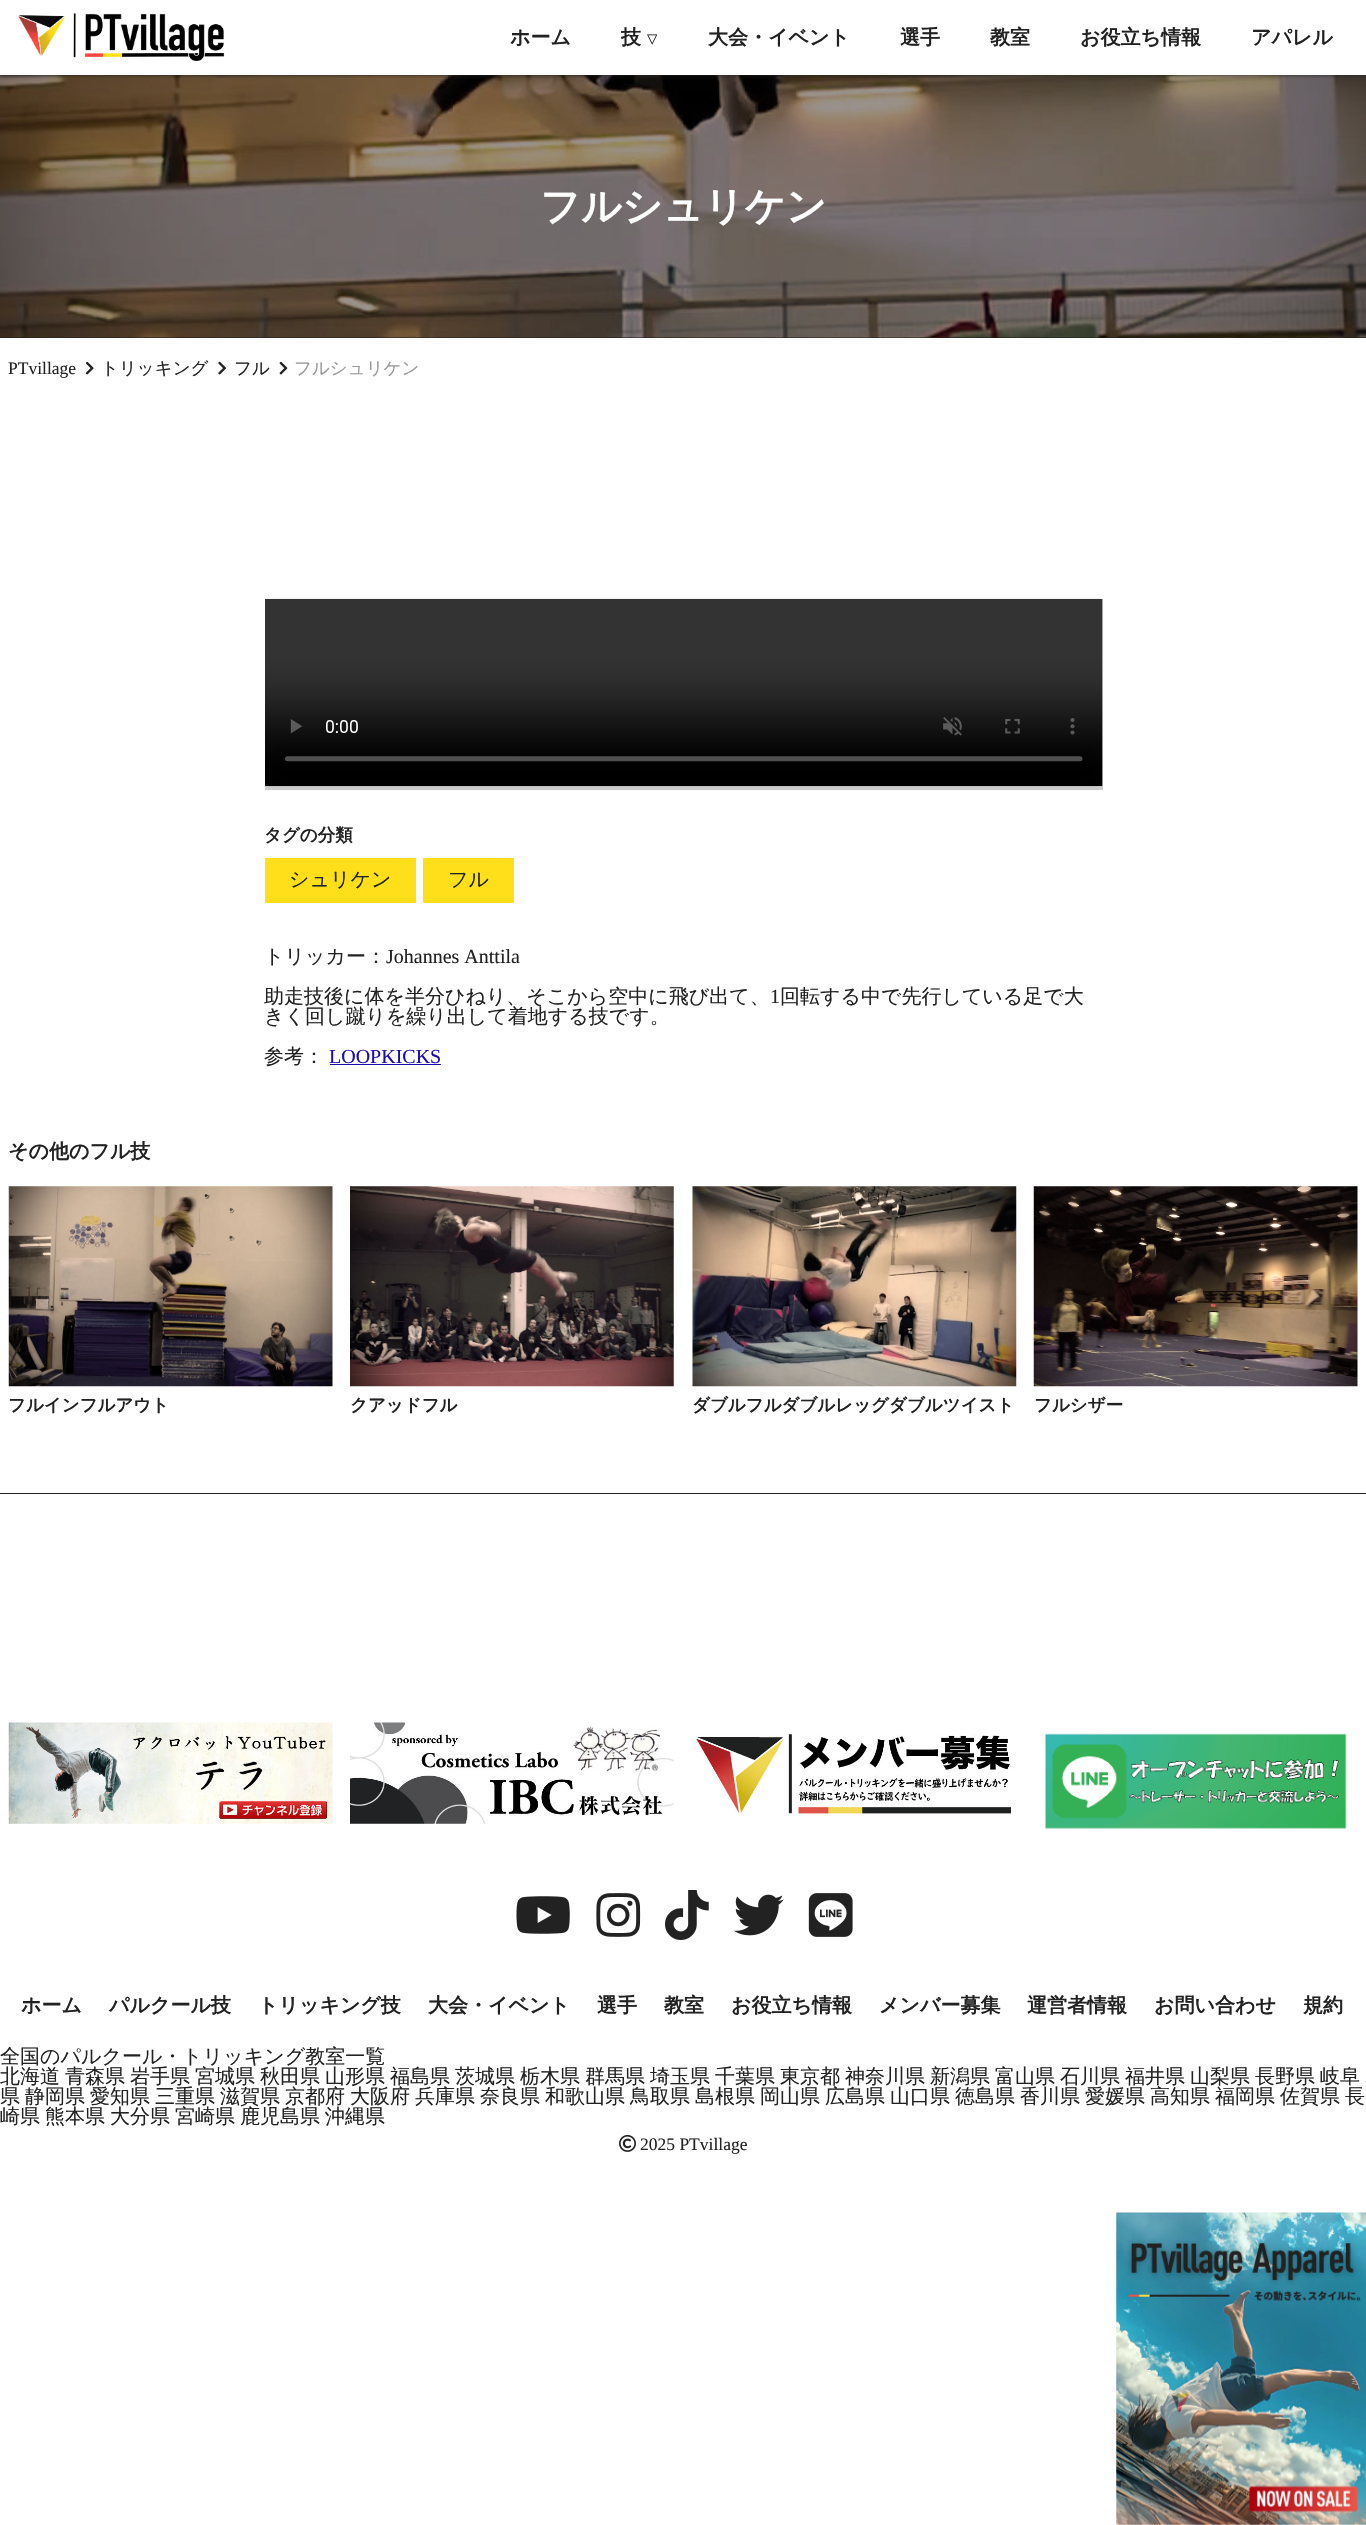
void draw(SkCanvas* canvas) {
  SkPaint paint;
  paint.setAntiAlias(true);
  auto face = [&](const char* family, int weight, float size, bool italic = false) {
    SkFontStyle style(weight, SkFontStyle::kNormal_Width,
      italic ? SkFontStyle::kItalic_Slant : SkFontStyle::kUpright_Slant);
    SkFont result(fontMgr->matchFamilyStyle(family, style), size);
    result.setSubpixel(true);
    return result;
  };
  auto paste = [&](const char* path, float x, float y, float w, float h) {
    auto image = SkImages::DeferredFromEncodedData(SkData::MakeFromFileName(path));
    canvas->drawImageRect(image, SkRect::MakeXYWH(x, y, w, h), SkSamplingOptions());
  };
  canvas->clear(0xffffffff);
  paint.setColor(0xff222222);
  canvas->drawRect(SkRect::MakeXYWH(0, 337, 1366, 1), paint);
  paste("img/2.png", 0, 75, 1366, 263);
  canvas->save();
  canvas->clipRect(SkRect::MakeXYWH(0, 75, 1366, 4));
  paint.setMaskFilter(SkMaskFilter::MakeBlur(kNormal_SkBlurStyle, 2));
  canvas->drawRect(SkRect::MakeXYWH(1, 0, 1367, 75), paint);
  paint.setMaskFilter(nullptr);
  canvas->restore();
  paste("img/1.png", 18, 13, 207, 48);
  paste("img/3.png", 85, 361, 9, 14);
  paste("img/4.png", 218, 361, 8, 14);
  paste("img/5.png", 279, 361, 9, 14);
  paint.setColor(0xffcccccc);
  canvas->drawRect(SkRect::MakeXYWH(265, 599, 838, 191), paint);
  paste("img/6.png", 265, 598, 838, 189);
  {
    const struct { float x, y, w, h; SkColor color; } items[] = {
      {265, 858, 151, 45, 0xfffedf19},
      {423, 858, 91, 45, 0xfffedf19},
      {330, 1064, 111, 1, 0xff1a0dab},
    };
    for (auto [x, y, w, h, color] : items) {
      paint.setColor(color);
      canvas->drawRect(SkRect::MakeXYWH(x, y, w, h), paint);
    }
  }
  paste("img/7.png", 8, 1186, 325, 201);
  paste("img/8.png", 350, 1186, 324, 201);
  paste("img/9.png", 692, 1186, 325, 201);
  paste("img/10.png", 1033, 1186, 325, 201);
  paint.setColor(0xff222222);
  canvas->drawRect(SkRect::MakeXYWH(0, 1493, 1366, 1), paint);
  paste("img/11.png", 8, 1722, 325, 102);
  paste("img/12.png", 350, 1722, 324, 102);
  paste("img/13.png", 692, 1734, 320, 82);
  paste("img/14.png", 1045, 1733, 302, 96);
  paste("img/15.png", 516, 1896, 54, 38);
  paste("img/16.png", 596, 1893, 45, 44);
  paste("img/17.png", 665, 1890, 44, 50);
  paste("img/18.png", 734, 1894, 50, 42);
  paste("img/19.png", 808, 1893, 45, 44);
  paste("img/20.png", 619, 2135, 17, 17);
  paste("img/21.png", 1116, 2212, 250, 313);
  auto f0 = face("WenQuanYi Zen Hei", 700, 20);
  canvas->drawString("ホーム", 510, 44, f0, paint);
  canvas->drawString("技", 621, 44, f0, paint);
  auto f1 = face("WenQuanYi Zen Hei", 700, 12);
  canvas->drawString("▽", 646, 44, f1, paint);
  {
    const struct { const char* s; float x, y; } items[] = {
      {"大会・イベント", 708, 44},
      {"選手", 900, 44},
      {"教室", 990, 44},
      {"お役立ち情報", 1080, 44},
      {"アパレル", 1251, 44},
    };
    for (auto [s, x, y] : items) {
      canvas->drawString(s, x, y, f0, paint);
    }
  }
  auto f2 = face("WenQuanYi Zen Hei", 700, 40);
  paint.setColor(0xffffffff);
  canvas->drawString("フルシュリケン", 540, 220, f2, paint);
  auto f3 = face("Liberation Serif", 400, 17.5f);
  paint.setColor(0xff222222);
  canvas->drawString("PTvillage", 8, 374, f3, paint);
  auto f4 = face("WenQuanYi Zen Hei", 500, 17.5f);
  canvas->drawString("トリッキング", 101, 374, f4, paint);
  canvas->drawString("フル", 234, 374, f4, paint);
  paint.setColor(0xff999999);
  canvas->drawString("フルシュリケン", 294, 374, f4, paint);
  auto f5 = face("WenQuanYi Zen Hei", 700, 17.5f);
  paint.setColor(0xff222222);
  canvas->drawString("タグの分類", 264, 841, f5, paint);
  auto f6 = face("WenQuanYi Zen Hei", 500, 20);
  {
    const struct { const char* s; float x, y; } items[] = {
      {"シュリケン", 289, 886},
      {"フル", 448, 886},
      {"トリッカー：", 264, 963},
    };
    for (auto [s, x, y] : items) {
      canvas->drawString(s, x, y, f6, paint);
    }
  }
  auto f7 = face("Liberation Serif", 400, 20);
  canvas->drawString("Johannes Anttila", 386, 963, f7, paint);
  canvas->drawString("助走技後に体を半分ひねり、そこから空中に飛び出て、", 264, 1003, f6, paint);
  canvas->drawString("1", 770, 1003, f7, paint);
  {
    const struct { const char* s; float x, y; } items[] = {
      {"回転する中で先行している足で大", 780, 1003},
      {"きく回し蹴りを繰り出して着地する技です。", 264, 1023},
      {"参考：", 264, 1063},
    };
    for (auto [s, x, y] : items) {
      canvas->drawString(s, x, y, f6, paint);
    }
  }
  paint.setColor(0xff1a0dab);
  canvas->drawString("LOOPKICKS", 329, 1063, f7, paint);
  paint.setColor(0xff222222);
  canvas->drawString("その他のフル技", 8, 1158, f0, paint);
  {
    const struct { const char* s; float x, y; } items[] = {
      {"フルインフルアウト", 8, 1411},
      {"クアッドフル", 350, 1411},
      {"ダブルフルダブルレッグダブルツイスト", 692, 1411},
      {"フルシザー", 1034, 1411},
    };
    for (auto [s, x, y] : items) {
      canvas->drawString(s, x, y, f5, paint);
    }
  }
  {
    const struct { const char* s; float x, y; } items[] = {
      {"ホーム", 21, 2012},
      {"パルクール技", 109, 2012},
      {"トリッキング技", 258, 2012},
      {"大会・イベント", 428, 2012},
      {"選手", 597, 2012},
      {"教室", 664, 2012},
      {"お役立ち情報", 731, 2012},
      {"メンバー募集", 879, 2012},
      {"運営者情報", 1027, 2012},
      {"お問い合わせ", 1154, 2012},
      {"規約", 1303, 2012},
    };
    for (auto [s, x, y] : items) {
      canvas->drawString(s, x, y, f0, paint);
    }
  }
  {
    const struct { const char* s; float x, y; } items[] = {
      {"全国のパルクール・トリッキング教室一覧", 0, 2063},
      {"北海道", 0, 2083},
      {"青森県", 65, 2083},
      {"岩手県", 130, 2083},
      {"宮城県", 195, 2083},
      {"秋田県", 260, 2083},
      {"山形県", 325, 2083},
      {"福島県", 390, 2083},
      {"茨城県", 455, 2083},
      {"栃木県", 520, 2083},
      {"群馬県", 585, 2083},
      {"埼玉県", 650, 2083},
      {"千葉県", 715, 2083},
      {"東京都", 780, 2083},
      {"神奈川県", 845, 2083},
      {"新潟県", 930, 2083},
      {"富山県", 995, 2083},
      {"石川県", 1060, 2083},
      {"福井県", 1125, 2083},
      {"山梨県", 1190, 2083},
      {"長野県", 1255, 2083},
      {"岐阜", 1320, 2083},
      {"県", 0, 2103},
      {"静岡県", 25, 2103},
      {"愛知県", 90, 2103},
      {"三重県", 155, 2103},
      {"滋賀県", 220, 2103},
      {"京都府", 285, 2103},
      {"大阪府", 350, 2103},
      {"兵庫県", 415, 2103},
      {"奈良県", 480, 2103},
      {"和歌山県", 545, 2103},
      {"鳥取県", 630, 2103},
      {"島根県", 695, 2103},
      {"岡山県", 760, 2103},
      {"広島県", 825, 2103},
      {"山口県", 890, 2103},
      {"徳島県", 955, 2103},
      {"香川県", 1020, 2103},
      {"愛媛県", 1085, 2103},
      {"高知県", 1150, 2103},
      {"福岡県", 1215, 2103},
      {"佐賀県", 1280, 2103},
      {"長", 1345, 2103},
      {"崎県", 0, 2123},
      {"熊本県", 45, 2123},
      {"大分県", 110, 2123},
      {"宮崎県", 175, 2123},
      {"鹿児島県", 240, 2123},
      {"沖縄県", 325, 2123},
    };
    for (auto [s, x, y] : items) {
      canvas->drawString(s, x, y, f6, paint);
    }
  }
  canvas->drawString("2025 PTvillage", 640, 2150, f3, paint);
}
